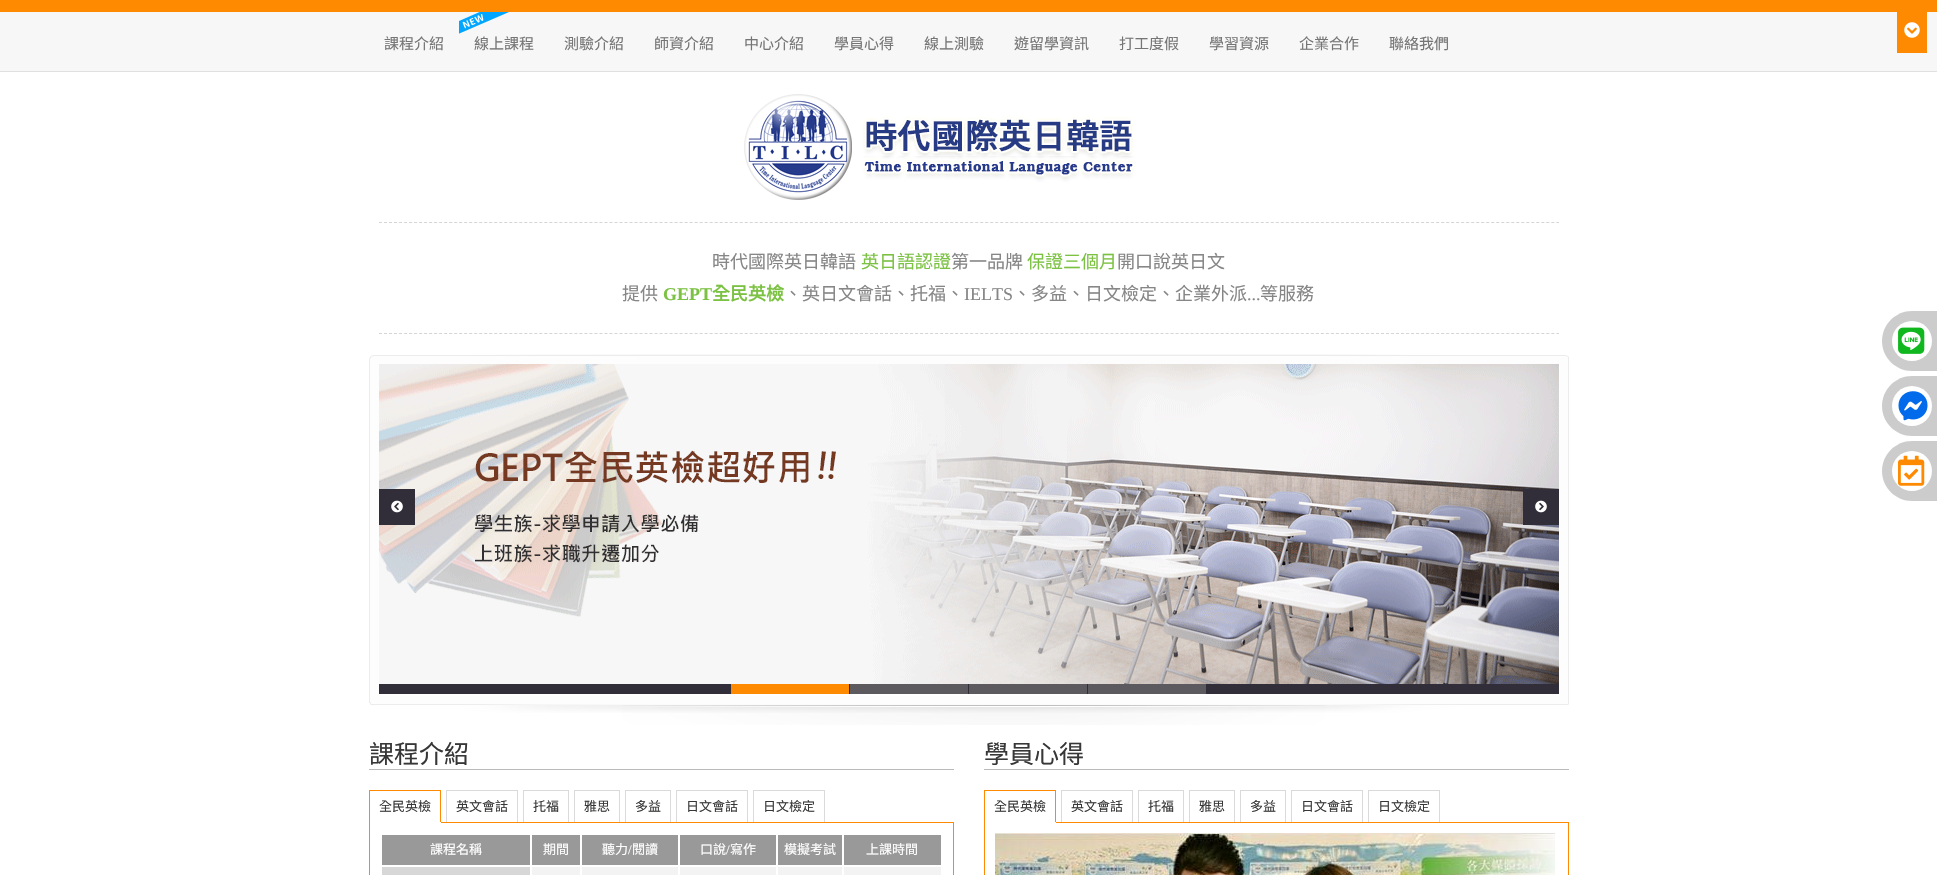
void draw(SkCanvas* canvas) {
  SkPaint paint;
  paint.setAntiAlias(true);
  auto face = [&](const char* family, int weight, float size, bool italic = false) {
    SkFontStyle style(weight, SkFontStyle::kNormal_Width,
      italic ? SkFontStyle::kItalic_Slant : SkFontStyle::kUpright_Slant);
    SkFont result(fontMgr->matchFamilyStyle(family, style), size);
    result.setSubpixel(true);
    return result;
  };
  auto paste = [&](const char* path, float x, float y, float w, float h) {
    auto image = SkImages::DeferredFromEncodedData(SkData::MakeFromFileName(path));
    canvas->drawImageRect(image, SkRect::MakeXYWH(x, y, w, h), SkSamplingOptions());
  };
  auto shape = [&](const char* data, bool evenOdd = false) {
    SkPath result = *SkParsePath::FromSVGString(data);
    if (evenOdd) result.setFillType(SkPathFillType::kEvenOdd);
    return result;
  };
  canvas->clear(0xffffffff);
  {
    const struct { float x, y, w, h; SkColor color; } items[] = {
      {0, 12, 1937, 59, 0xfff7f7f7},
      {0, 0, 1937, 12, 0xfffe8a02},
      {0, 71, 1937, 1, 0xffe0e0e0},
    };
    for (auto [x, y, w, h, color] : items) {
      paint.setColor(color);
      canvas->drawRect(SkRect::MakeXYWH(x, y, w, h), paint);
    }
  }
  paste("img/1.png", 459, 12, 50, 22);
  paint.setColor(0xfffe8a02);
  canvas->drawRect(SkRect::MakeXYWH(1897, 12, 30, 41), paint);
  paste("img/2.png", 1904, 22, 16, 16);
  paste("img/3.png", 744, 94, 391, 106);
  paint.setStroke(true);
  paint.setStrokeWidth(1);
  paint.setColor(0xffd5d5d5);
  paint.setPathEffect(SkDashPathEffect::Make({{3, 2.01f}}, 0));
  canvas->drawPath(shape("M379 222.5H1559"), paint);
  paint.setPathEffect(nullptr);
  paint.setPathEffect(SkDashPathEffect::Make({{3, 2.01f}}, 0));
  canvas->drawPath(shape("M379 333.5H1559"), paint);
  paint.setPathEffect(nullptr);
  paste("img/4.png", 369, 354, 1200, 359);
  paste("img/5.png", 379, 364, 1180, 320);
  paint.setStroke(false);
  paint.setColor(0xff322e39);
  canvas->drawRect(SkRect::MakeXYWH(379, 489, 36, 36), paint);
  paste("img/6.png", 391, 500, 12, 13);
  canvas->drawRect(SkRect::MakeXYWH(1523, 489, 36, 36), paint);
  paste("img/7.png", 1535, 500, 12, 13);
  {
    const struct { float x, y, w, h; SkColor color; } items[] = {
      {379, 684, 1180, 10, 0xff322e39},
      {731, 684, 118, 10, 0xfffe8a02},
      {850, 684, 118, 10, 0xff5c5a5e},
      {969, 684, 118, 10, 0xff5c5a5e},
      {1088, 684, 118, 10, 0xff5c5a5e},
    };
    for (auto [x, y, w, h, color] : items) {
      paint.setColor(color);
      canvas->drawRect(SkRect::MakeXYWH(x, y, w, h), paint);
    }
  }
  paint.setColor(0xffcccccc);
  canvas->drawPath(shape("M1912 311H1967V371H1912C1895.5 371 1882 357.5 1882 341C1882 324.5 1895.5 311 1912 311Z"), paint);
  paint.setColor(0xffffffff);
  canvas->drawCircle(1912, 341, 20, paint);
  paste("img/8.png", 1898, 327, 27, 27);
  paint.setColor(0xffcccccc);
  canvas->drawPath(shape("M1912 376H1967V436H1912C1895.5 436 1882 422.5 1882 406C1882 389.5 1895.5 376 1912 376Z"), paint);
  paint.setColor(0xffffffff);
  canvas->drawCircle(1912, 406, 20, paint);
  paste("img/9.png", 1898, 391, 30, 30);
  paint.setColor(0xffcccccc);
  canvas->drawPath(shape("M1912 441H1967V501H1912C1895.5 501 1882 487.5 1882 471C1882 454.5 1895.5 441 1912 441Z"), paint);
  paint.setColor(0xffffffff);
  canvas->drawCircle(1912, 471, 20, paint);
  paste("img/10.png", 1898, 455, 27, 31);
  paste("img/11.png", 622, 705, 703, 20);
  paint.setColor(0xffbab9b9);
  canvas->drawRect(SkRect::MakeXYWH(369, 769, 585, 1), paint);
  paint.setColor(0xfffe8a02);
  canvas->drawRect(SkRect::MakeXYWH(369, 790, 72, 1), paint);
  paint.setStroke(true);
  canvas->drawRect(SkRect::MakeXYWH(369.5f, 822.5f, 584, 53), paint);
  paint.setStroke(false);
  {
    const struct { float x, y, w, h; SkColor color; } items[] = {
      {440, 790, 1, 33, 0xfffe8a02},
      {369, 822, 72, 1, 0xffffffff},
      {369, 790, 1, 33, 0xfffe8a02},
      {446, 790, 72, 1, 0xffdadada},
      {517, 790, 1, 32, 0xffdadada},
      {446, 790, 1, 32, 0xffdadada},
      {523, 790, 46, 1, 0xffdadada},
      {568, 790, 1, 32, 0xffdadada},
      {523, 790, 1, 32, 0xffdadada},
      {574, 790, 46, 1, 0xffdadada},
      {619, 790, 1, 32, 0xffdadada},
      {574, 790, 1, 32, 0xffdadada},
      {625, 790, 46, 1, 0xffdadada},
      {670, 790, 1, 32, 0xffdadada},
      {625, 790, 1, 32, 0xffdadada},
      {676, 790, 72, 1, 0xffdadada},
      {747, 790, 1, 32, 0xffdadada},
      {676, 790, 1, 32, 0xffdadada},
      {753, 790, 72, 1, 0xffdadada},
      {824, 790, 1, 32, 0xffdadada},
      {753, 790, 1, 32, 0xffdadada},
      {382, 835, 148, 30, 0xff999999},
      {532, 835, 48, 30, 0xff999999},
      {582, 835, 96, 30, 0xff999999},
      {680, 835, 96, 30, 0xff999999},
      {778, 835, 64, 30, 0xff999999},
      {844, 835, 97, 30, 0xff999999},
      {382, 867, 148, 8, 0xffd7d7d7},
      {532, 867, 48, 8, 0xfff3f3f3},
      {582, 867, 96, 8, 0xfff3f3f3},
      {680, 867, 96, 8, 0xfff3f3f3},
      {778, 867, 64, 8, 0xfff3f3f3},
      {844, 867, 97, 8, 0xfff3f3f3},
      {984, 769, 585, 1, 0xffbab9b9},
      {984, 790, 72, 1, 0xfffe8a02},
    };
    for (auto [x, y, w, h, color] : items) {
      paint.setColor(color);
      canvas->drawRect(SkRect::MakeXYWH(x, y, w, h), paint);
    }
  }
  paint.setStroke(true);
  canvas->drawRect(SkRect::MakeXYWH(984.5f, 822.5f, 584, 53), paint);
  paint.setStroke(false);
  {
    const struct { float x, y, w, h; SkColor color; } items[] = {
      {1055, 790, 1, 33, 0xfffe8a02},
      {984, 822, 72, 1, 0xffffffff},
      {984, 790, 1, 33, 0xfffe8a02},
      {1061, 790, 72, 1, 0xffdadada},
      {1132, 790, 1, 32, 0xffdadada},
      {1061, 790, 1, 32, 0xffdadada},
      {1138, 790, 46, 1, 0xffdadada},
      {1183, 790, 1, 32, 0xffdadada},
      {1138, 790, 1, 32, 0xffdadada},
      {1189, 790, 46, 1, 0xffdadada},
      {1234, 790, 1, 32, 0xffdadada},
      {1189, 790, 1, 32, 0xffdadada},
      {1240, 790, 46, 1, 0xffdadada},
      {1285, 790, 1, 32, 0xffdadada},
      {1240, 790, 1, 32, 0xffdadada},
      {1291, 790, 72, 1, 0xffdadada},
      {1362, 790, 1, 32, 0xffdadada},
      {1291, 790, 1, 32, 0xffdadada},
      {1368, 790, 72, 1, 0xffdadada},
      {1439, 790, 1, 32, 0xffdadada},
      {1368, 790, 1, 32, 0xffdadada},
    };
    for (auto [x, y, w, h, color] : items) {
      paint.setColor(color);
      canvas->drawRect(SkRect::MakeXYWH(x, y, w, h), paint);
    }
  }
  paste("img/12.png", 995, 833, 560, 42);
  auto f0 = face("Noto Sans CJK TC", 400, 15);
  paint.setColor(0xff757575);
  {
    const struct { const char* s; float x, y; } items[] = {
      {"課程介紹", 384, 49},
      {"線上課程", 474, 49},
      {"測驗介紹", 564, 49},
      {"師資介紹", 654, 49},
      {"中心介紹", 744, 49},
      {"學員心得", 834, 49},
      {"線上測驗", 924, 49},
      {"遊留學資訊", 1014, 49},
      {"打工度假", 1119, 49},
      {"學習資源", 1209, 49},
      {"企業合作", 1299, 49},
      {"聯絡我們", 1389, 49},
    };
    for (auto [s, x, y] : items) {
      canvas->drawString(s, x, y, f0, paint);
    }
  }
  auto f1 = face("Noto Sans CJK TC", 400, 18);
  paint.setColor(0xff868686);
  canvas->drawString("時代國際英日韓語", 712, 268, f1, paint);
  paint.setColor(0xff7bc142);
  canvas->drawString("英日語認證", 861, 268, f1, paint);
  paint.setColor(0xff868686);
  canvas->drawString("第一品牌", 951, 268, f1, paint);
  paint.setColor(0xff7bc142);
  canvas->drawString("保證三個月", 1027, 268, f1, paint);
  paint.setColor(0xff868686);
  canvas->drawString("開口說英日文", 1117, 268, f1, paint);
  canvas->drawString("提供", 622, 300, f1, paint);
  auto f2 = face("Liberation Serif", 700, 18);
  paint.setColor(0xff7bc142);
  canvas->drawString("GEPT", 663, 300, f2, paint);
  auto f3 = face("Noto Sans CJK TC", 700, 18);
  canvas->drawString("全民英檢", 712, 300, f3, paint);
  paint.setColor(0xff868686);
  canvas->drawString("、英日文會話、托福、", 784, 300, f1, paint);
  auto f4 = face("Liberation Serif", 400, 18);
  canvas->drawString("IELTS", 964, 300, f4, paint);
  canvas->drawString("、多益、日文檢定、企業外派", 1013, 300, f1, paint);
  canvas->drawString("...", 1247, 300, f4, paint);
  canvas->drawString("等服務", 1260, 300, f1, paint);
  auto f5 = face("Noto Sans CJK TC", 400, 25);
  paint.setColor(0xff373737);
  canvas->drawString("課程介紹", 369, 763, f5, paint);
  auto f6 = face("Noto Sans CJK TC", 400, 13);
  {
    const struct { const char* s; float x, y; } items[] = {
      {"全民英檢", 379, 811},
      {"英文會話", 456, 811},
      {"托福", 533, 811},
      {"雅思", 584, 811},
      {"多益", 635, 811},
      {"日文會話", 686, 811},
      {"日文檢定", 763, 811},
    };
    for (auto [s, x, y] : items) {
      canvas->drawString(s, x, y, f6, paint);
    }
  }
  paint.setColor(0xffffffff);
  {
    const struct { const char* s; float x, y; } items[] = {
      {"課程名稱", 430, 854},
      {"期間", 543, 854},
      {"聽力", 602, 854},
    };
    for (auto [s, x, y] : items) {
      canvas->drawString(s, x, y, f6, paint);
    }
  }
  auto f7 = face("Liberation Serif", 400, 13);
  canvas->drawString("/", 628, 854, f7, paint);
  canvas->drawString("閱讀", 632, 854, f6, paint);
  canvas->drawString("口說", 700, 854, f6, paint);
  canvas->drawString("/", 726, 854, f7, paint);
  {
    const struct { const char* s; float x, y; } items[] = {
      {"寫作", 730, 854},
      {"模擬考試", 784, 854},
      {"上課時間", 866, 854},
    };
    for (auto [s, x, y] : items) {
      canvas->drawString(s, x, y, f6, paint);
    }
  }
  paint.setColor(0xff373737);
  canvas->drawString("學員心得", 984, 763, f5, paint);
  {
    const struct { const char* s; float x, y; } items[] = {
      {"全民英檢", 994, 811},
      {"英文會話", 1071, 811},
      {"托福", 1148, 811},
      {"雅思", 1199, 811},
      {"多益", 1250, 811},
      {"日文會話", 1301, 811},
      {"日文檢定", 1378, 811},
    };
    for (auto [s, x, y] : items) {
      canvas->drawString(s, x, y, f6, paint);
    }
  }
}
